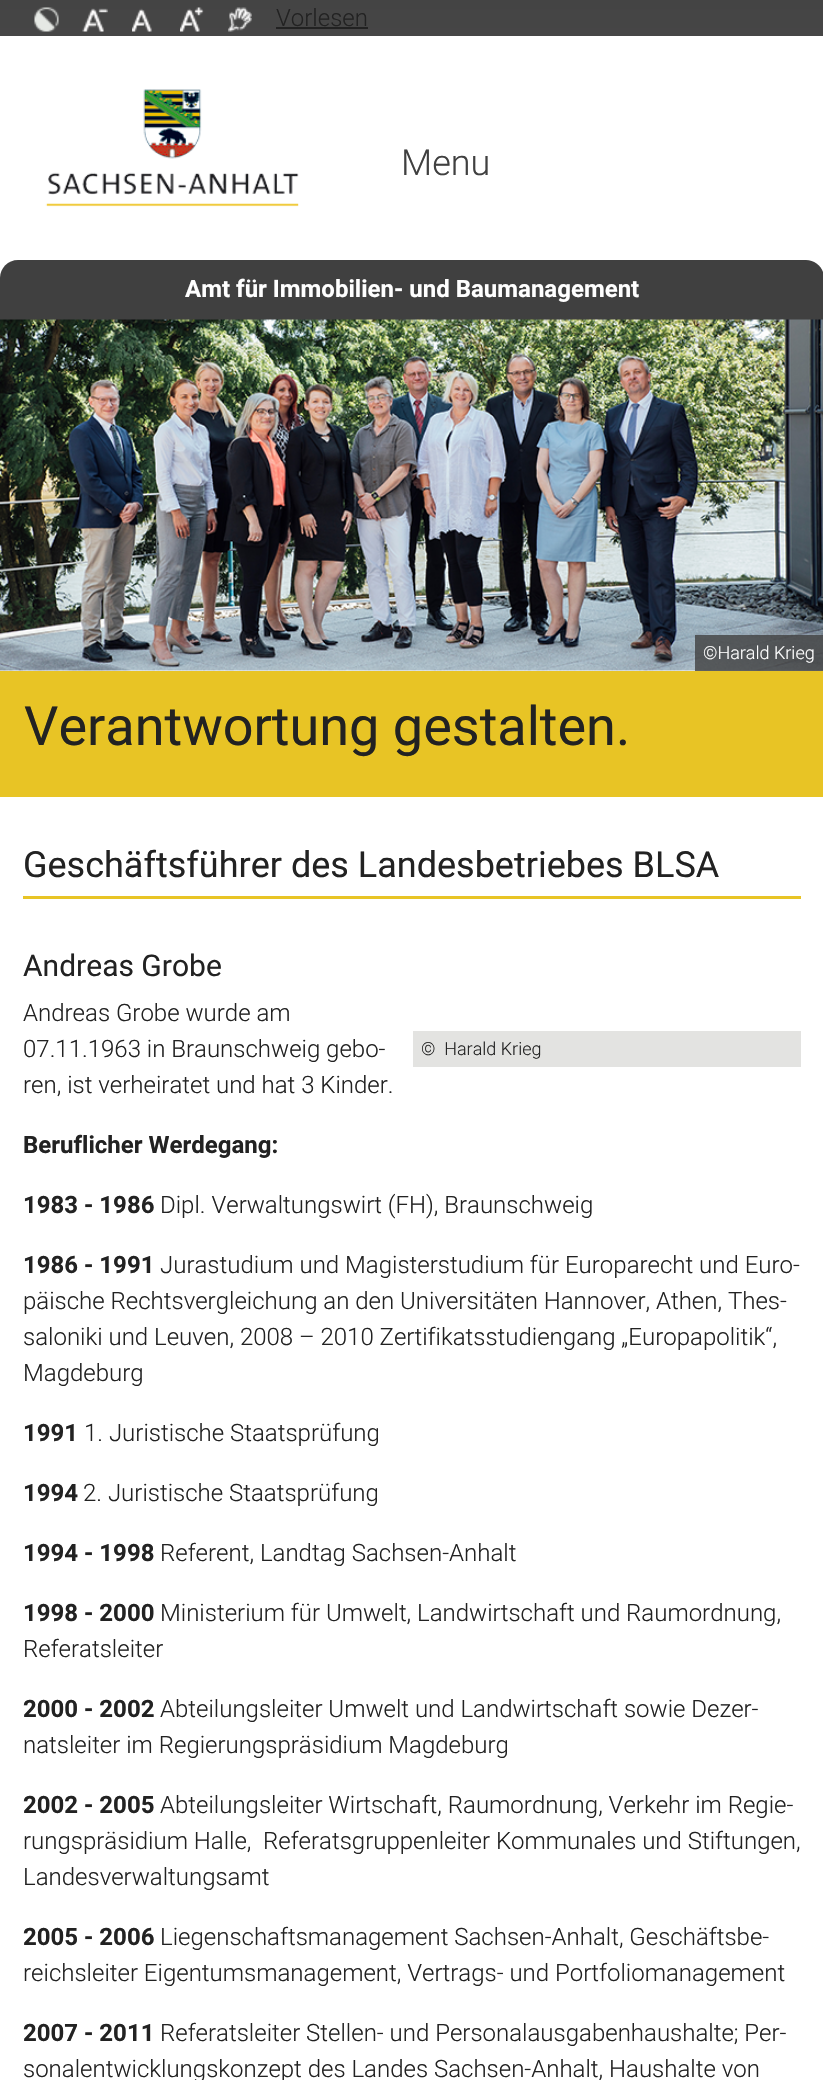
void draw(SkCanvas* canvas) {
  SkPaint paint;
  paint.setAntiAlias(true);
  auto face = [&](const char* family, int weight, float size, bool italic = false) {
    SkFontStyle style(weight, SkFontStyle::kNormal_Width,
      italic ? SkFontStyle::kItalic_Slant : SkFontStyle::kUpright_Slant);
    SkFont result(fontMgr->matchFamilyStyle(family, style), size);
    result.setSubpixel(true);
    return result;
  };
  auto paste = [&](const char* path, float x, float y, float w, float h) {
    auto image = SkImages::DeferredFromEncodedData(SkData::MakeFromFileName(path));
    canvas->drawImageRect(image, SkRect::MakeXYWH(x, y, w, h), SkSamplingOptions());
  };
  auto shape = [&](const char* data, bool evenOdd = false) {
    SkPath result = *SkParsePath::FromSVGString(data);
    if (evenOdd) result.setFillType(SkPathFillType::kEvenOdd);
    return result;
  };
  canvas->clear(0xffffffff);
  {
    const SkColor colors[] = {0xff444444, 0xff8f8b8f};
    const float stops[] = {0, 0.3f};
    const SkPoint ends[] = {{412, 0}, {412, 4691}};
    paint.setShader(SkGradientShader::MakeLinear(ends, colors, stops, 2, SkTileMode::kClamp));
    paint.setAlpha(255);
  }
  canvas->drawRect(SkRect::MakeXYWH(0, 0, 823, 36), paint);
  paste("img/1.png", 34, 7, 25, 25);
  paste("img/2.png", 82, 8, 26, 24);
  paste("img/3.png", 132, 8, 20, 24);
  paste("img/4.png", 180, 7, 24, 25);
  paste("img/5.png", 228, 7, 24, 25);
  paint.setShader(nullptr);
  paint.setColor(0xff222222);
  canvas->drawRect(SkRect::MakeXYWH(276, 27, 92, 2), paint);
  paste("img/6.png", 45, 89, 254, 118);
  paint.setColor(0xff404040);
  canvas->drawPath(shape("M18 260H806C816 260 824 268 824 278V320H0V278C0 268 8 260 18 260Z"), paint);
  paste("img/7.png", 0, 319, 823, 352);
  {
    const struct { float x, y, w, h; SkColor color; } items[] = {
      {695, 635, 128, 36, 0xcc404040},
      {0, 671, 823, 126, 0xffe8c425},
      {23, 896, 778, 3, 0xffe8c425},
      {413, 1031, 388, 36, 0xffe3e3e1},
    };
    for (auto [x, y, w, h, color] : items) {
      paint.setColor(color);
      canvas->drawRect(SkRect::MakeXYWH(x, y, w, h), paint);
    }
  }
  auto f0 = face("Roboto", 300, 24);
  paint.setColor(0xff222222);
  canvas->drawString("Vorlesen", 276, 26, f0, paint);
  auto f1 = face("Roboto", 300, 36);
  paint.setColor(0xff404040);
  canvas->drawString("Menu", 401, 175, f1, paint);
  auto f2 = face("Roboto", 700, 24);
  paint.setColor(0xffffffff);
  canvas->drawString("Amt für Immobilien- und Baumanagement", 185, 297, f2, paint);
  auto f3 = face("Roboto", 300, 18);
  canvas->drawString("©Harald Krieg", 703, 659, f3, paint);
  auto f4 = face("Roboto", 400, 54);
  paint.setColor(0xff222222);
  canvas->drawString("Verantwortung gestalten.", 24, 745, f4, paint);
  auto f5 = face("Roboto", 400, 36);
  canvas->drawString("Geschäftsführer des Landesbetriebes BLSA", 23, 877, f5, paint);
  auto f6 = face("Roboto", 400, 30);
  canvas->drawString("Andreas Grobe", 23, 976, f6, paint);
  {
    const struct { const char* s; float x, y; } items[] = {
      {"Andreas Grobe wurde am", 23, 1021},
      {"07.11.1963 in Braunschweig gebo-", 23, 1057},
      {"ren, ist verheiratet und hat 3 Kinder.", 23, 1093},
    };
    for (auto [s, x, y] : items) {
      canvas->drawString(s, x, y, f0, paint);
    }
  }
  canvas->drawString("Beruflicher Werdegang:", 23, 1153, f2, paint);
  canvas->drawString("1983 - 1986", 23, 1213, f2, paint);
  canvas->drawString("Dipl. Verwaltungswirt (FH), Braunschweig", 160, 1213, f0, paint);
  canvas->drawString("1986 - 1991", 23, 1273, f2, paint);
  {
    const struct { const char* s; float x, y; } items[] = {
      {"Jurastudium und Magisterstudium für Europarecht und Euro-", 160, 1273},
      {"päische Rechtsvergleichung an den Universitäten Hannover, Athen, Thes-", 23, 1309},
      {"saloniki und Leuven, 2008 – 2010 Zertifikatsstudiengang „Europapolitik“,", 23, 1345},
      {"Magdeburg", 23, 1381},
    };
    for (auto [s, x, y] : items) {
      canvas->drawString(s, x, y, f0, paint);
    }
  }
  canvas->drawString("1991", 23, 1441, f2, paint);
  canvas->drawString("1. Juristische Staatsprüfung", 84, 1441, f0, paint);
  canvas->drawString("1994", 23, 1501, f2, paint);
  canvas->drawString("2. Juristische Staatsprüfung", 83, 1501, f0, paint);
  canvas->drawString("1994 - 1998", 23, 1561, f2, paint);
  canvas->drawString("Referent, Landtag Sachsen-Anhalt", 160, 1561, f0, paint);
  canvas->drawString("1998 - 2000", 23, 1621, f2, paint);
  canvas->drawString("Ministerium für Umwelt, Landwirtschaft und Raumordnung,", 160, 1621, f0, paint);
  canvas->drawString("Referatsleiter", 23, 1657, f0, paint);
  canvas->drawString("2000 - 2002", 23, 1717, f2, paint);
  canvas->drawString("Abteilungsleiter Umwelt und Landwirtschaft sowie Dezer-", 160, 1717, f0, paint);
  canvas->drawString("natsleiter im Regierungspräsidium Magdeburg", 23, 1753, f0, paint);
  canvas->drawString("2002 - 2005", 23, 1813, f2, paint);
  {
    const struct { const char* s; float x, y; } items[] = {
      {"Abteilungsleiter Wirtschaft, Raumordnung, Verkehr im Regie-", 160, 1813},
      {"rungspräsidium Halle,", 23, 1849},
      {"Referatsgruppenleiter Kommunales und Stiftungen,", 263, 1849},
      {"Landesverwaltungsamt", 23, 1885},
    };
    for (auto [s, x, y] : items) {
      canvas->drawString(s, x, y, f0, paint);
    }
  }
  canvas->drawString("2005 - 2006", 23, 1945, f2, paint);
  canvas->drawString("Liegenschaftsmanagement Sachsen-Anhalt, Geschäftsbe-", 160, 1945, f0, paint);
  canvas->drawString("reichsleiter Eigentumsmanagement, Vertrags- und Portfoliomanagement", 23, 1981, f0, paint);
  canvas->drawString("2007 - 2011", 23, 2041, f2, paint);
  canvas->drawString("Referatsleiter Stellen- und Personalausgabenhaushalte; Per-", 160, 2041, f0, paint);
  canvas->drawString("sonalentwicklungskonzept des Landes Sachsen-Anhalt, Haushalte von", 23, 2077, f0, paint);
  canvas->drawString("©  Harald Krieg", 421, 1055, f3, paint);
}
